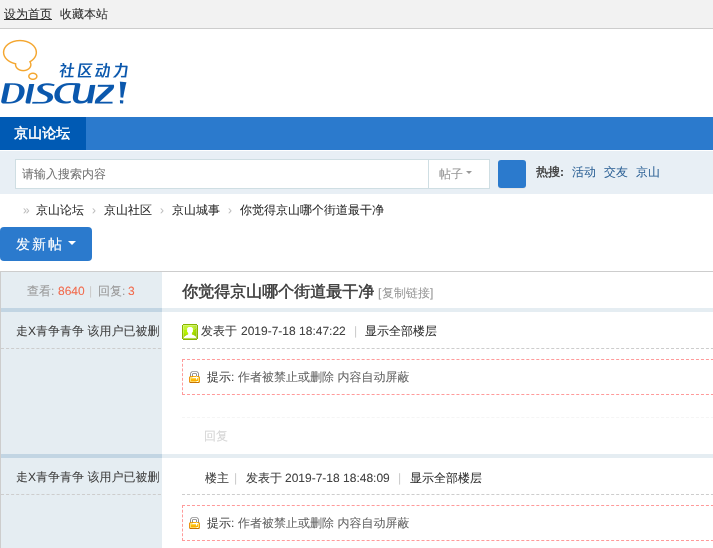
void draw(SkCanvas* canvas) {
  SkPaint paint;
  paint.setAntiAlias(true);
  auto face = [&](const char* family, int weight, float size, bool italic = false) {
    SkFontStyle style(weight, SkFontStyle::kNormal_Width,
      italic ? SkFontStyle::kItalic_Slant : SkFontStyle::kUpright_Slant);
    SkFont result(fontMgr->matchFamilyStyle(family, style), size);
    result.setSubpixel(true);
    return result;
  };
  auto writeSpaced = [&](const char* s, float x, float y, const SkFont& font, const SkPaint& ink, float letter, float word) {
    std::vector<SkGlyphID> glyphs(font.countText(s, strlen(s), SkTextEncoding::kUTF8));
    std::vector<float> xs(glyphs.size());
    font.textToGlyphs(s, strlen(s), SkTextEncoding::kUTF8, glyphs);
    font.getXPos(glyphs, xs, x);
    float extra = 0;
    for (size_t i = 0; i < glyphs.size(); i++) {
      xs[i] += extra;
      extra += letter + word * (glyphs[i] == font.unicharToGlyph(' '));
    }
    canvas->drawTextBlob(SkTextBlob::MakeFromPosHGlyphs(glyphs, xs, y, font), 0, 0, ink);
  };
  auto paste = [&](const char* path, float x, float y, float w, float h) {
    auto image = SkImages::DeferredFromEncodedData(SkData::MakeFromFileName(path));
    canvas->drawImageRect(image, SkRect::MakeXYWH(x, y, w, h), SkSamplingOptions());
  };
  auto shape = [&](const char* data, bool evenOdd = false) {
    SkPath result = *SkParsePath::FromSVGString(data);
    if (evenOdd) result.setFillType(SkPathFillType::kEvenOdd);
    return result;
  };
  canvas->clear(0xffffffff);
  {
    const struct { float x, y, w, h; SkColor color; } items[] = {
      {0, 0, 713, 28, 0xfff2f2f2},
      {0, 28, 713, 1, 0xffcdcdcd},
      {4, 19, 48, 1, 0xff333333},
    };
    for (auto [x, y, w, h, color] : items) {
      paint.setColor(color);
      canvas->drawRect(SkRect::MakeXYWH(x, y, w, h), paint);
    }
  }
  paste("img/1.png", 1, 39, 127, 65);
  {
    const struct { float x, y, w, h; SkColor color; } items[] = {
      {86, 117, 627, 33, 0xff2b7acd},
      {0, 117, 86, 33, 0xff005ab4},
      {0, 151, 713, 43, 0xffe8eff5},
      {427, 159, 63, 1, 0xffcfdee3},
      {489, 159, 1, 30, 0xffcfdee3},
      {427, 188, 63, 1, 0xffcfdee3},
    };
    for (auto [x, y, w, h, color] : items) {
      paint.setColor(color);
      canvas->drawRect(SkRect::MakeXYWH(x, y, w, h), paint);
    }
  }
  paint.setColor(0xffffffff);
  canvas->drawRect(SkRect::MakeXYWH(15.5f, 159.5f, 413, 29), paint);
  paint.setStroke(true);
  paint.setStrokeWidth(1);
  paint.setColor(0xffcfdee3);
  canvas->drawRect(SkRect::MakeXYWH(15.5f, 159.5f, 413, 29), paint);
  paint.setStroke(false);
  paint.setColor(0xffffffff);
  canvas->drawRect(SkRect::MakeXYWH(429, 160, 60, 28), paint);
  paint.setColor(0xff999999);
  canvas->drawPath(shape("M466 171H472L469 174Z"), paint);
  paint.setColor(0xffe5e5e5);
  canvas->drawPath(shape("M498 185C498 189.5 501 189 504.5 189H519.5C523 189 526 189.5 526 185C526 186.5 524.5 188 523 188H501C499.5 188 498 186.5 498 185Z"), paint);
  paint.setColor(0xff2b7acd);
  canvas->drawRoundRect(SkRect::MakeXYWH(498, 160, 28, 28), 3, 3, paint);
  canvas->drawRoundRect(SkRect::MakeXYWH(0, 227, 92, 34), 4, 4, paint);
  paint.setColor(0xffffffff);
  canvas->drawPath(shape("M68 241H76L72 245Z"), paint);
  paint.setStroke(true);
  paint.setColor(0xffcdcdcd);
  canvas->drawRect(SkRect::MakeXYWH(0.5f, 271.5f, 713, 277), paint);
  paint.setStroke(false);
  {
    const struct { float x, y, w, h; SkColor color; } items[] = {
      {1, 272, 161, 36, 0xffe5edf2},
      {1, 308, 161, 4, 0xffc2d5e3},
      {162, 308, 551, 4, 0xffe5edf2},
      {1, 312, 161, 142, 0xffe5edf2},
    };
    for (auto [x, y, w, h, color] : items) {
      paint.setColor(color);
      canvas->drawRect(SkRect::MakeXYWH(x, y, w, h), paint);
    }
  }
  paint.setStroke(true);
  paint.setColor(0xffcdcdcd);
  paint.setPathEffect(SkDashPathEffect::Make({{3, 2.06f}}, 0));
  canvas->drawPath(shape("M1 348.5H161"), paint);
  paint.setPathEffect(nullptr);
  paint.setPathEffect(SkDashPathEffect::Make({{3, 1.99f}}, 0));
  canvas->drawPath(shape("M182 348.5H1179"), paint);
  paint.setPathEffect(nullptr);
  paste("img/2.png", 182, 324, 16, 16);
  paste("img/3.png", 189, 371, 11, 12);
  paint.setColor(0xffff9a9a);
  paint.setPathEffect(SkDashPathEffect::Make({{3, 1.99f}}, 0));
  canvas->drawPath(shape("M182 359.5H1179"), paint);
  paint.setPathEffect(nullptr);
  paint.setPathEffect(SkDashPathEffect::Make({{3, 1.99f}}, 0));
  canvas->drawPath(shape("M182 394.5H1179"), paint);
  paint.setPathEffect(nullptr);
  paint.setPathEffect(SkDashPathEffect::Make({{3, 1.71f}}, 0));
  canvas->drawPath(shape("M182.5 359V395"), paint);
  paint.setPathEffect(nullptr);
  paint.setColor(0xfff5f5f5);
  paint.setPathEffect(SkDashPathEffect::Make({{3, 1.99f}}, 0));
  canvas->drawPath(shape("M182 417.5H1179"), paint);
  paint.setPathEffect(nullptr);
  paint.setStroke(false);
  {
    const struct { float x, y, w, h; SkColor color; } items[] = {
      {1, 454, 161, 4, 0xffc2d5e3},
      {162, 454, 551, 4, 0xffe5edf2},
      {1, 458, 161, 90, 0xffe5edf2},
    };
    for (auto [x, y, w, h, color] : items) {
      paint.setColor(color);
      canvas->drawRect(SkRect::MakeXYWH(x, y, w, h), paint);
    }
  }
  paint.setStroke(true);
  paint.setColor(0xffcdcdcd);
  paint.setPathEffect(SkDashPathEffect::Make({{3, 2.06f}}, 0));
  canvas->drawPath(shape("M1 494.5H161"), paint);
  paint.setPathEffect(nullptr);
  paint.setPathEffect(SkDashPathEffect::Make({{3, 1.99f}}, 0));
  canvas->drawPath(shape("M182 494.5H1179"), paint);
  paint.setPathEffect(nullptr);
  paste("img/3.png", 189, 517, 11, 12);
  paint.setColor(0xffff9a9a);
  paint.setPathEffect(SkDashPathEffect::Make({{3, 1.99f}}, 0));
  canvas->drawPath(shape("M182 505.5H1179"), paint);
  paint.setPathEffect(nullptr);
  paint.setPathEffect(SkDashPathEffect::Make({{3, 1.99f}}, 0));
  canvas->drawPath(shape("M182 540.5H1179"), paint);
  paint.setPathEffect(nullptr);
  paint.setPathEffect(SkDashPathEffect::Make({{3, 1.71f}}, 0));
  canvas->drawPath(shape("M182.5 505V541"), paint);
  paint.setPathEffect(nullptr);
  auto f0 = face("WenQuanYi Zen Hei", 500, 12);
  paint.setStroke(false);
  paint.setColor(0xff333333);
  canvas->drawString("设为首页", 4, 18, f0, paint);
  canvas->drawString("收藏本站", 60, 18, f0, paint);
  auto f1 = face("WenQuanYi Zen Hei", 700, 14);
  paint.setColor(0xffffffff);
  canvas->drawString("京山论坛", 14, 138, f1, paint);
  paint.setColor(0xff757575);
  canvas->drawString("请输入搜索内容", 22, 178, f0, paint);
  paint.setColor(0xff999999);
  canvas->drawString("帖子", 439, 178, f0, paint);
  auto f2 = face("WenQuanYi Zen Hei", 700, 12);
  paint.setColor(0xff444444);
  canvas->drawString("热搜", 536, 176, f2, paint);
  auto f3 = face("Liberation Sans", 700, 12);
  canvas->drawString(":", 560, 176, f3, paint);
  paint.setColor(0xff336699);
  {
    const struct { const char* s; float x, y; } items[] = {
      {"活动", 572, 176},
      {"交友", 604, 176},
      {"京山", 636, 176},
    };
    for (auto [s, x, y] : items) {
      canvas->drawString(s, x, y, f0, paint);
    }
  }
  auto f4 = face("Liberation Sans", 400, 12);
  paint.setColor(0xffbdbdbd);
  canvas->drawString("»", 23, 214, f4, paint);
  paint.setColor(0xff333333);
  canvas->drawString("京山论坛", 36, 214, f0, paint);
  paint.setColor(0xffbdbdbd);
  canvas->drawString("›", 92, 214, f4, paint);
  paint.setColor(0xff333333);
  canvas->drawString("京山社区", 104, 214, f0, paint);
  paint.setColor(0xffbdbdbd);
  canvas->drawString("›", 160, 214, f4, paint);
  paint.setColor(0xff333333);
  canvas->drawString("京山城事", 172, 214, f0, paint);
  paint.setColor(0xffbdbdbd);
  canvas->drawString("›", 228, 214, f4, paint);
  paint.setColor(0xff333333);
  canvas->drawString("你觉得京山哪个街道最干净", 240, 214, f0, paint);
  auto f5 = face("WenQuanYi Zen Hei", 500, 14);
  paint.setColor(0xffffffff);
  writeSpaced("发新帖", 16, 249, f5, paint, 2, 0);
  paint.setColor(0xff999999);
  canvas->drawString("查看", 27, 295, f0, paint);
  canvas->drawString(":", 51, 295, f4, paint);
  paint.setColor(0xfff26c4f);
  canvas->drawString("8640", 58, 295, f4, paint);
  paint.setColor(0xffcccccc);
  canvas->drawString("|", 89, 295, f4, paint);
  paint.setColor(0xff999999);
  canvas->drawString("回复", 98, 295, f0, paint);
  canvas->drawString(":", 122, 295, f4, paint);
  paint.setColor(0xfff26c4f);
  canvas->drawString("3", 128, 295, f4, paint);
  auto f6 = face("WenQuanYi Zen Hei", 700, 16);
  paint.setColor(0xff444444);
  canvas->drawString("你觉得京山哪个街道最干净", 182, 297, f6, paint);
  paint.setColor(0xff999999);
  canvas->drawString("[", 378, 297, f4, paint);
  canvas->drawString("复制链接", 382, 297, f0, paint);
  canvas->drawString("]", 430, 297, f4, paint);
  paint.setColor(0xff444444);
  canvas->drawString("走", 16, 335, f0, paint);
  canvas->drawString("X", 28, 335, f4, paint);
  canvas->drawString("青争青争 该用户已被删", 36, 335, f0, paint);
  canvas->drawString("发表于", 201, 335, f0, paint);
  canvas->drawString("2019-7-18 18:47:22", 241, 335, f4, paint);
  paint.setColor(0xffcccccc);
  canvas->drawString("|", 354, 335, f4, paint);
  paint.setColor(0xff333333);
  canvas->drawString("显示全部楼层", 365, 335, f0, paint);
  paint.setColor(0xff444444);
  canvas->drawString("提示", 207, 381, f0, paint);
  canvas->drawString(":", 231, 381, f4, paint);
  paint.setColor(0xff666666);
  canvas->drawString("作者被禁止或删除 内容自动屏蔽", 238, 381, f0, paint);
  paint.setColor(0xffd6d6d6);
  canvas->drawString("回复", 204, 440, f0, paint);
  paint.setColor(0xff444444);
  canvas->drawString("走", 16, 481, f0, paint);
  canvas->drawString("X", 28, 481, f4, paint);
  canvas->drawString("青争青争 该用户已被删", 36, 481, f0, paint);
  canvas->drawString("楼主", 205, 482, f0, paint);
  paint.setColor(0xffcccccc);
  canvas->drawString("|", 234, 482, f4, paint);
  paint.setColor(0xff444444);
  canvas->drawString("发表于", 246, 482, f0, paint);
  canvas->drawString("2019-7-18 18:48:09", 285, 482, f4, paint);
  paint.setColor(0xffcccccc);
  canvas->drawString("|", 398, 482, f4, paint);
  paint.setColor(0xff333333);
  canvas->drawString("显示全部楼层", 410, 482, f0, paint);
  paint.setColor(0xff444444);
  canvas->drawString("提示", 207, 527, f0, paint);
  canvas->drawString(":", 231, 527, f4, paint);
  paint.setColor(0xff666666);
  canvas->drawString("作者被禁止或删除 内容自动屏蔽", 238, 527, f0, paint);
}
